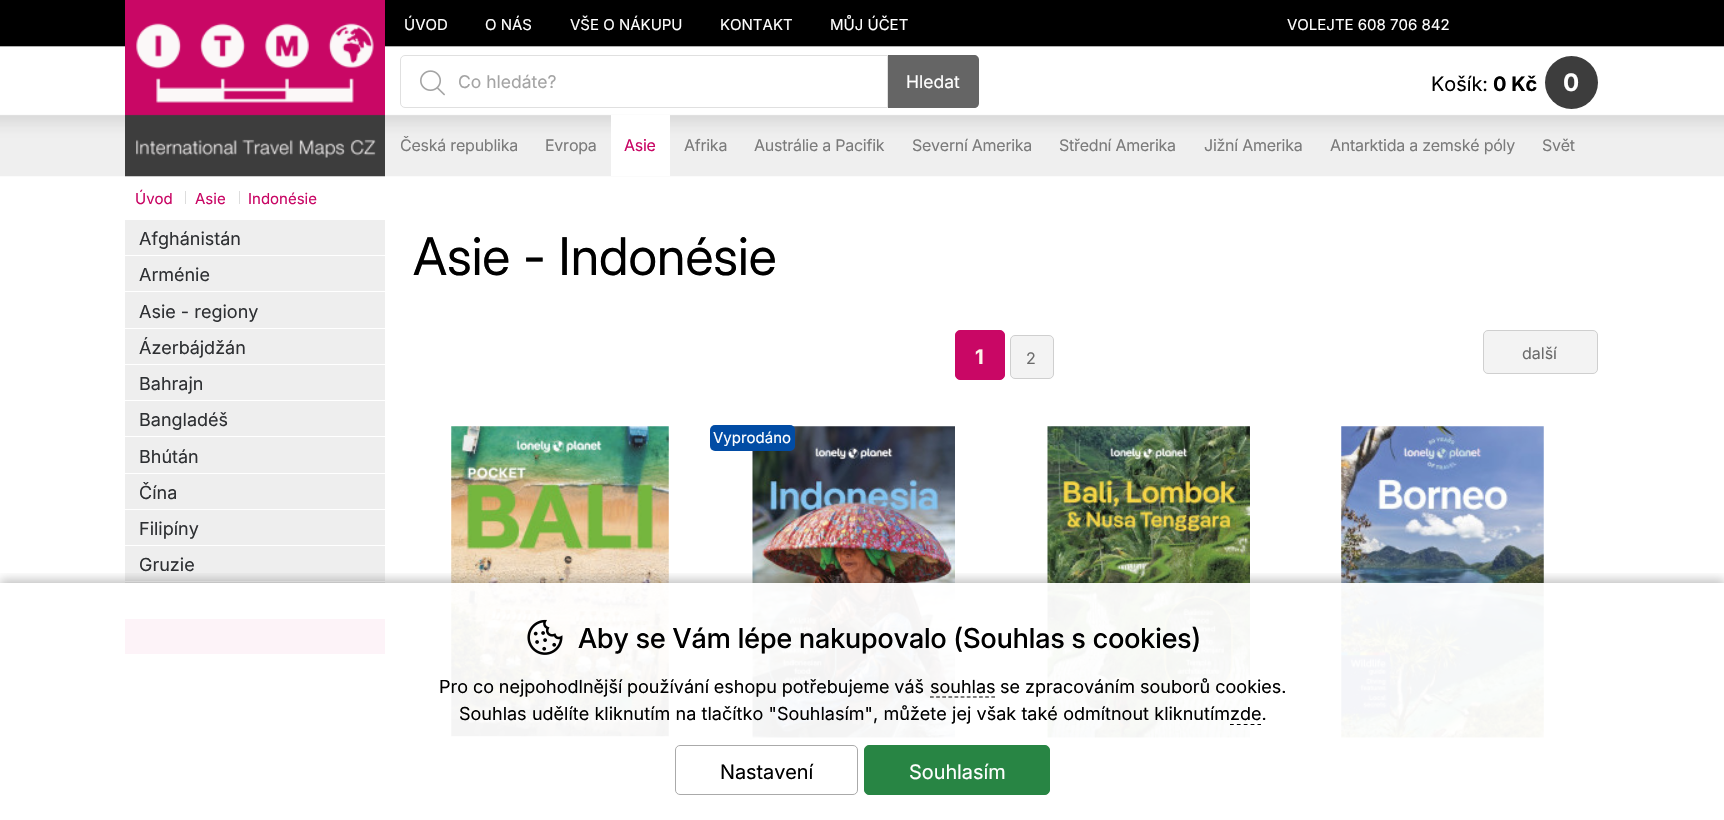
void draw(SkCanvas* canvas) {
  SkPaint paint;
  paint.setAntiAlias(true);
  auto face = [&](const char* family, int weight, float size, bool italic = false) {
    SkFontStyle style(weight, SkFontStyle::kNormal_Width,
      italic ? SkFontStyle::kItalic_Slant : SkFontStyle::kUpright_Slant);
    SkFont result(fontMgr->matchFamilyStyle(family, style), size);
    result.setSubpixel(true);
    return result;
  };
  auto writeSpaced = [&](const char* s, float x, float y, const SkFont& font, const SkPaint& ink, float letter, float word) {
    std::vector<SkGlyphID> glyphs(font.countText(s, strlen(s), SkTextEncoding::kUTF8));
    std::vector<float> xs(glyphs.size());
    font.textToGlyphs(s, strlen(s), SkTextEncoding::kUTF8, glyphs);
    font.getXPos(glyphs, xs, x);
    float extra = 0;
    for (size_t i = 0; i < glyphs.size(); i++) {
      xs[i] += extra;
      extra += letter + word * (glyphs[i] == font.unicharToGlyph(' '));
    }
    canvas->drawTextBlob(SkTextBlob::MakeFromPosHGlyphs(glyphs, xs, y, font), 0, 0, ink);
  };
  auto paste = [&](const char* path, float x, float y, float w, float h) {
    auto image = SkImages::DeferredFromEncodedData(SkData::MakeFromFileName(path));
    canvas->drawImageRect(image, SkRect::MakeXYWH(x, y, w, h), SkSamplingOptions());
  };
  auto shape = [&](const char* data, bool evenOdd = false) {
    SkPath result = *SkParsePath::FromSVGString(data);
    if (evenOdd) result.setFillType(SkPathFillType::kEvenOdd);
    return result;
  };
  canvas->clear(0xffffffff);
  paste("img/1.png", 0, 0, 1724, 177);
  paste("img/2.png", 125, 0, 260, 177);
  paint.setStroke(true);
  paint.setStrokeWidth(1);
  paint.setColor(0xffe0e0e0);
  canvas->drawPath(shape("M405 55.5H887.5V107.5H405C402.5 107.5 400.5 105.5 400.5 103V60C400.5 57.5 402.5 55.5 405 55.5Z"), paint);
  paste("img/3.png", 420, 70, 25, 26);
  paint.setStroke(false);
  paint.setColor(0xff656565);
  canvas->drawPath(shape("M888 55H974C977 55 979 57 979 60V103C979 106 977 108 974 108H888Z"), paint);
  paint.setColor(0xff3d3d3d);
  canvas->drawCircle(1571.5f, 82.5f, 26.5f, paint);
  {
    const struct { float x, y, w, h; SkColor color; } items[] = {
      {611, 115, 59, 61, 0xffffffff},
      {185, 191, 1, 13, 0xffdddddd},
      {239, 191, 1, 13, 0xffdddddd},
      {125, 220, 260, 35, 0xffeeeeee},
      {125, 256, 260, 72, 0xffeeeeee},
      {125, 291, 260, 1, 0xffffffff},
      {125, 329, 260, 35, 0xffeeeeee},
      {125, 365, 260, 35, 0xffeeeeee},
      {125, 401, 260, 72, 0xffeeeeee},
      {125, 436, 260, 1, 0xffffffff},
      {125, 474, 260, 35, 0xffeeeeee},
      {125, 510, 260, 35, 0xffeeeeee},
      {125, 546, 260, 72, 0xffeeeeee},
      {125, 581, 260, 1, 0xffffffff},
      {125, 619, 260, 35, 0xffc90765},
      {125, 655, 260, 35, 0xffeeeeee},
      {125, 691, 260, 72, 0xffeeeeee},
      {125, 726, 260, 1, 0xffffffff},
      {125, 764, 260, 35, 0xffeeeeee},
      {125, 800, 260, 20, 0xffeeeeee},
    };
    for (auto [x, y, w, h, color] : items) {
      paint.setColor(color);
      canvas->drawRect(SkRect::MakeXYWH(x, y, w, h), paint);
    }
  }
  paint.setColor(0xffc90765);
  canvas->drawRoundRect(SkRect::MakeXYWH(955.5f, 330.5f, 49, 49), 4.5f, 4.5f, paint);
  paint.setStroke(true);
  canvas->drawRoundRect(SkRect::MakeXYWH(955.5f, 330.5f, 49, 49), 4.5f, 4.5f, paint);
  paint.setStroke(false);
  paint.setColor(0xfff3f3f3);
  canvas->drawRoundRect(SkRect::MakeXYWH(1010.5f, 335.5f, 43, 43), 4.5f, 4.5f, paint);
  paint.setStroke(true);
  paint.setColor(0xffcfcfcf);
  canvas->drawRoundRect(SkRect::MakeXYWH(1010.5f, 335.5f, 43, 43), 4.5f, 4.5f, paint);
  paint.setStroke(false);
  paint.setColor(0xfff3f3f3);
  canvas->drawRoundRect(SkRect::MakeXYWH(1483.5f, 330.5f, 114, 43), 4.5f, 4.5f, paint);
  paint.setStroke(true);
  paint.setColor(0xffcfcfcf);
  canvas->drawRoundRect(SkRect::MakeXYWH(1483.5f, 330.5f, 114, 43), 4.5f, 4.5f, paint);
  paste("img/4.png", 451, 426, 218, 311);
  paste("img/5.png", 752, 426, 203, 312);
  paint.setStroke(false);
  paint.setColor(0xff014ca5);
  canvas->drawRoundRect(SkRect::MakeXYWH(710, 425, 85, 26), 5, 5, paint);
  paste("img/6.png", 1047, 426, 203, 312);
  paste("img/7.png", 1341, 426, 203, 312);
  canvas->save();
  canvas->clipRect(SkRect::MakeXYWH(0, 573, 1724, 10));
  paint.setColor(0x40000000);
  paint.setMaskFilter(SkMaskFilter::MakeBlur(kNormal_SkBlurStyle, 5));
  canvas->drawRect(SkRect::MakeXYWH(0, 580, 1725, 238), paint);
  paint.setMaskFilter(nullptr);
  canvas->restore();
  paint.setColor(0xf2ffffff);
  canvas->drawRect(SkRect::MakeXYWH(125, 583, 1419, 237), paint);
  paste("img/8.png", 527, 619, 36, 36);
  paint.setStroke(true);
  paint.setStrokeWidth(1.2f);
  paint.setColor(0xff000000);
  paint.setPathEffect(SkDashPathEffect::Make({{3.75f, 2.38f}}, 0));
  canvas->drawPath(shape("M930 697H995"), paint);
  paint.setPathEffect(nullptr);
  paint.setPathEffect(SkDashPathEffect::Make({{3.75f, 3.12f}}, 0));
  canvas->drawPath(shape("M1230 724.5H1261"), paint);
  paint.setPathEffect(nullptr);
  paint.setStrokeWidth(1);
  paint.setColor(0xffaaaaaa);
  canvas->drawRoundRect(SkRect::MakeXYWH(675.5f, 745.5f, 182, 49), 4.5f, 4.5f, paint);
  paint.setStroke(false);
  paint.setColor(0xff288544);
  canvas->drawRoundRect(SkRect::MakeXYWH(864.5f, 745.5f, 185, 49), 4.5f, 4.5f, paint);
  paint.setStroke(true);
  canvas->drawRoundRect(SkRect::MakeXYWH(864.5f, 745.5f, 185, 49), 4.5f, 4.5f, paint);
  auto f0 = face("Inter", 400, 15);
  paint.setStroke(false);
  paint.setColor(0xffffffff);
  {
    const struct { const char* s; float x, y; } items[] = {
      {"ÚVOD", 404, 30},
      {"O NÁS", 485, 30},
      {"VŠE O NÁKUPU", 570, 30},
      {"KONTAKT", 720, 30},
      {"MŮJ ÚČET", 830, 30},
      {"VOLEJTE 608 706 842", 1287, 30},
    };
    for (auto [s, x, y] : items) {
      canvas->drawString(s, x, y, f0, paint);
    }
  }
  auto f1 = face("Inter", 400, 17.5f);
  paint.setColor(0xffa4a4a4);
  canvas->drawString("Co hledáte?", 458, 88, f1, paint);
  paint.setColor(0xffffffff);
  canvas->drawString("Hledat", 906, 88, f1, paint);
  auto f2 = face("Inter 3", 400, 20);
  paint.setColor(0xff000000);
  canvas->drawString("Košík:", 1431, 91, f2, paint);
  auto f3 = face("Inter", 700, 20);
  canvas->drawString("0 Kč", 1493, 91, f3, paint);
  auto f4 = face("Inter", 700, 24);
  paint.setColor(0xffffffff);
  canvas->drawString("0", 1563, 91, f4, paint);
  auto f5 = face("Inter", 400, 16);
  paint.setColor(0xff7b7b7b);
  writeSpaced("Česká republika", 400, 151, f5, paint, -0.25f, 0);
  writeSpaced("Evropa", 545, 151, f5, paint, -0.25f, 0);
  paint.setColor(0xffc90765);
  writeSpaced("Asie", 624, 151, f5, paint, -0.25f, 0);
  paint.setColor(0xff7b7b7b);
  {
    const struct { const char* s; float x, y; } items[] = {
      {"Afrika", 684, 151},
      {"Austrálie a Pacifik", 754, 151},
      {"Severní Amerika", 912, 151},
      {"Střední Amerika", 1059, 151},
      {"Jižní Amerika", 1204, 151},
      {"Antarktida a zemské póly", 1330, 151},
      {"Svět", 1542, 151},
    };
    for (auto [s, x, y] : items) {
      writeSpaced(s, x, y, f5, paint, -0.25f, 0);
    }
  }
  paint.setColor(0xffc90765);
  {
    const struct { const char* s; float x, y; } items[] = {
      {"Úvod", 135, 204},
      {"Asie", 195, 204},
      {"Indonésie", 248, 204},
    };
    for (auto [s, x, y] : items) {
      canvas->drawString(s, x, y, f0, paint);
    }
  }
  auto f6 = face("Inter", 400, 18);
  paint.setColor(0xff2e3033);
  {
    const struct { const char* s; float x, y; } items[] = {
      {"Afghánistán", 139, 245},
      {"Arménie", 139, 281},
      {"Asie - regiony", 139, 318},
      {"Ázerbájdžán", 139, 354},
      {"Bahrajn", 139, 390},
      {"Bangladéš", 139, 426},
      {"Bhútán", 139, 463},
      {"Čína", 139, 499},
      {"Filipíny", 139, 535},
      {"Gruzie", 139, 571},
    };
    for (auto [s, x, y] : items) {
      canvas->drawString(s, x, y, f6, paint);
    }
  }
  auto f7 = face("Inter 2", 400, 52);
  paint.setColor(0xff000000);
  canvas->drawString("Asie - Indonésie", 413, 275, f7, paint);
  paint.setColor(0xfffef4e9);
  canvas->drawString("1", 975, 364, f3, paint);
  paint.setColor(0xff6b6b6b);
  canvas->drawString("2", 1026, 364, f5, paint);
  canvas->drawString("další", 1522, 359, f5, paint);
  paint.setColor(0xffffffff);
  canvas->drawString("Vyprodáno", 713, 443, f0, paint);
  auto f8 = face("Inter", 500, 27.5f);
  paint.setColor(0xff000000);
  canvas->drawString("Aby se Vám lépe nakupovalo (Souhlas s cookies)", 578, 648, f8, paint);
  writeSpaced("Pro co nejpohodlnější používání eshopu potřebujeme váš", 439, 693, f6, paint, 0, -0.25f);
  canvas->drawString("souhlas", 930, 693, f6, paint);
  canvas->drawString("se zpracováním souborů cookies.", 1000, 693, f6, paint);
  writeSpaced("Souhlas udělíte kliknutím na tlačítko \"Souhlasím\", můžete jej však také odmítnout kliknutím", 459, 720, f6, paint, 0, 0.25f);
  canvas->drawString("zde.", 1230, 720, f6, paint);
  canvas->drawString("Nastavení", 720, 779, f2, paint);
  paint.setColor(0xffffffff);
  canvas->drawString("Souhlasím", 909, 779, f2, paint);
}
